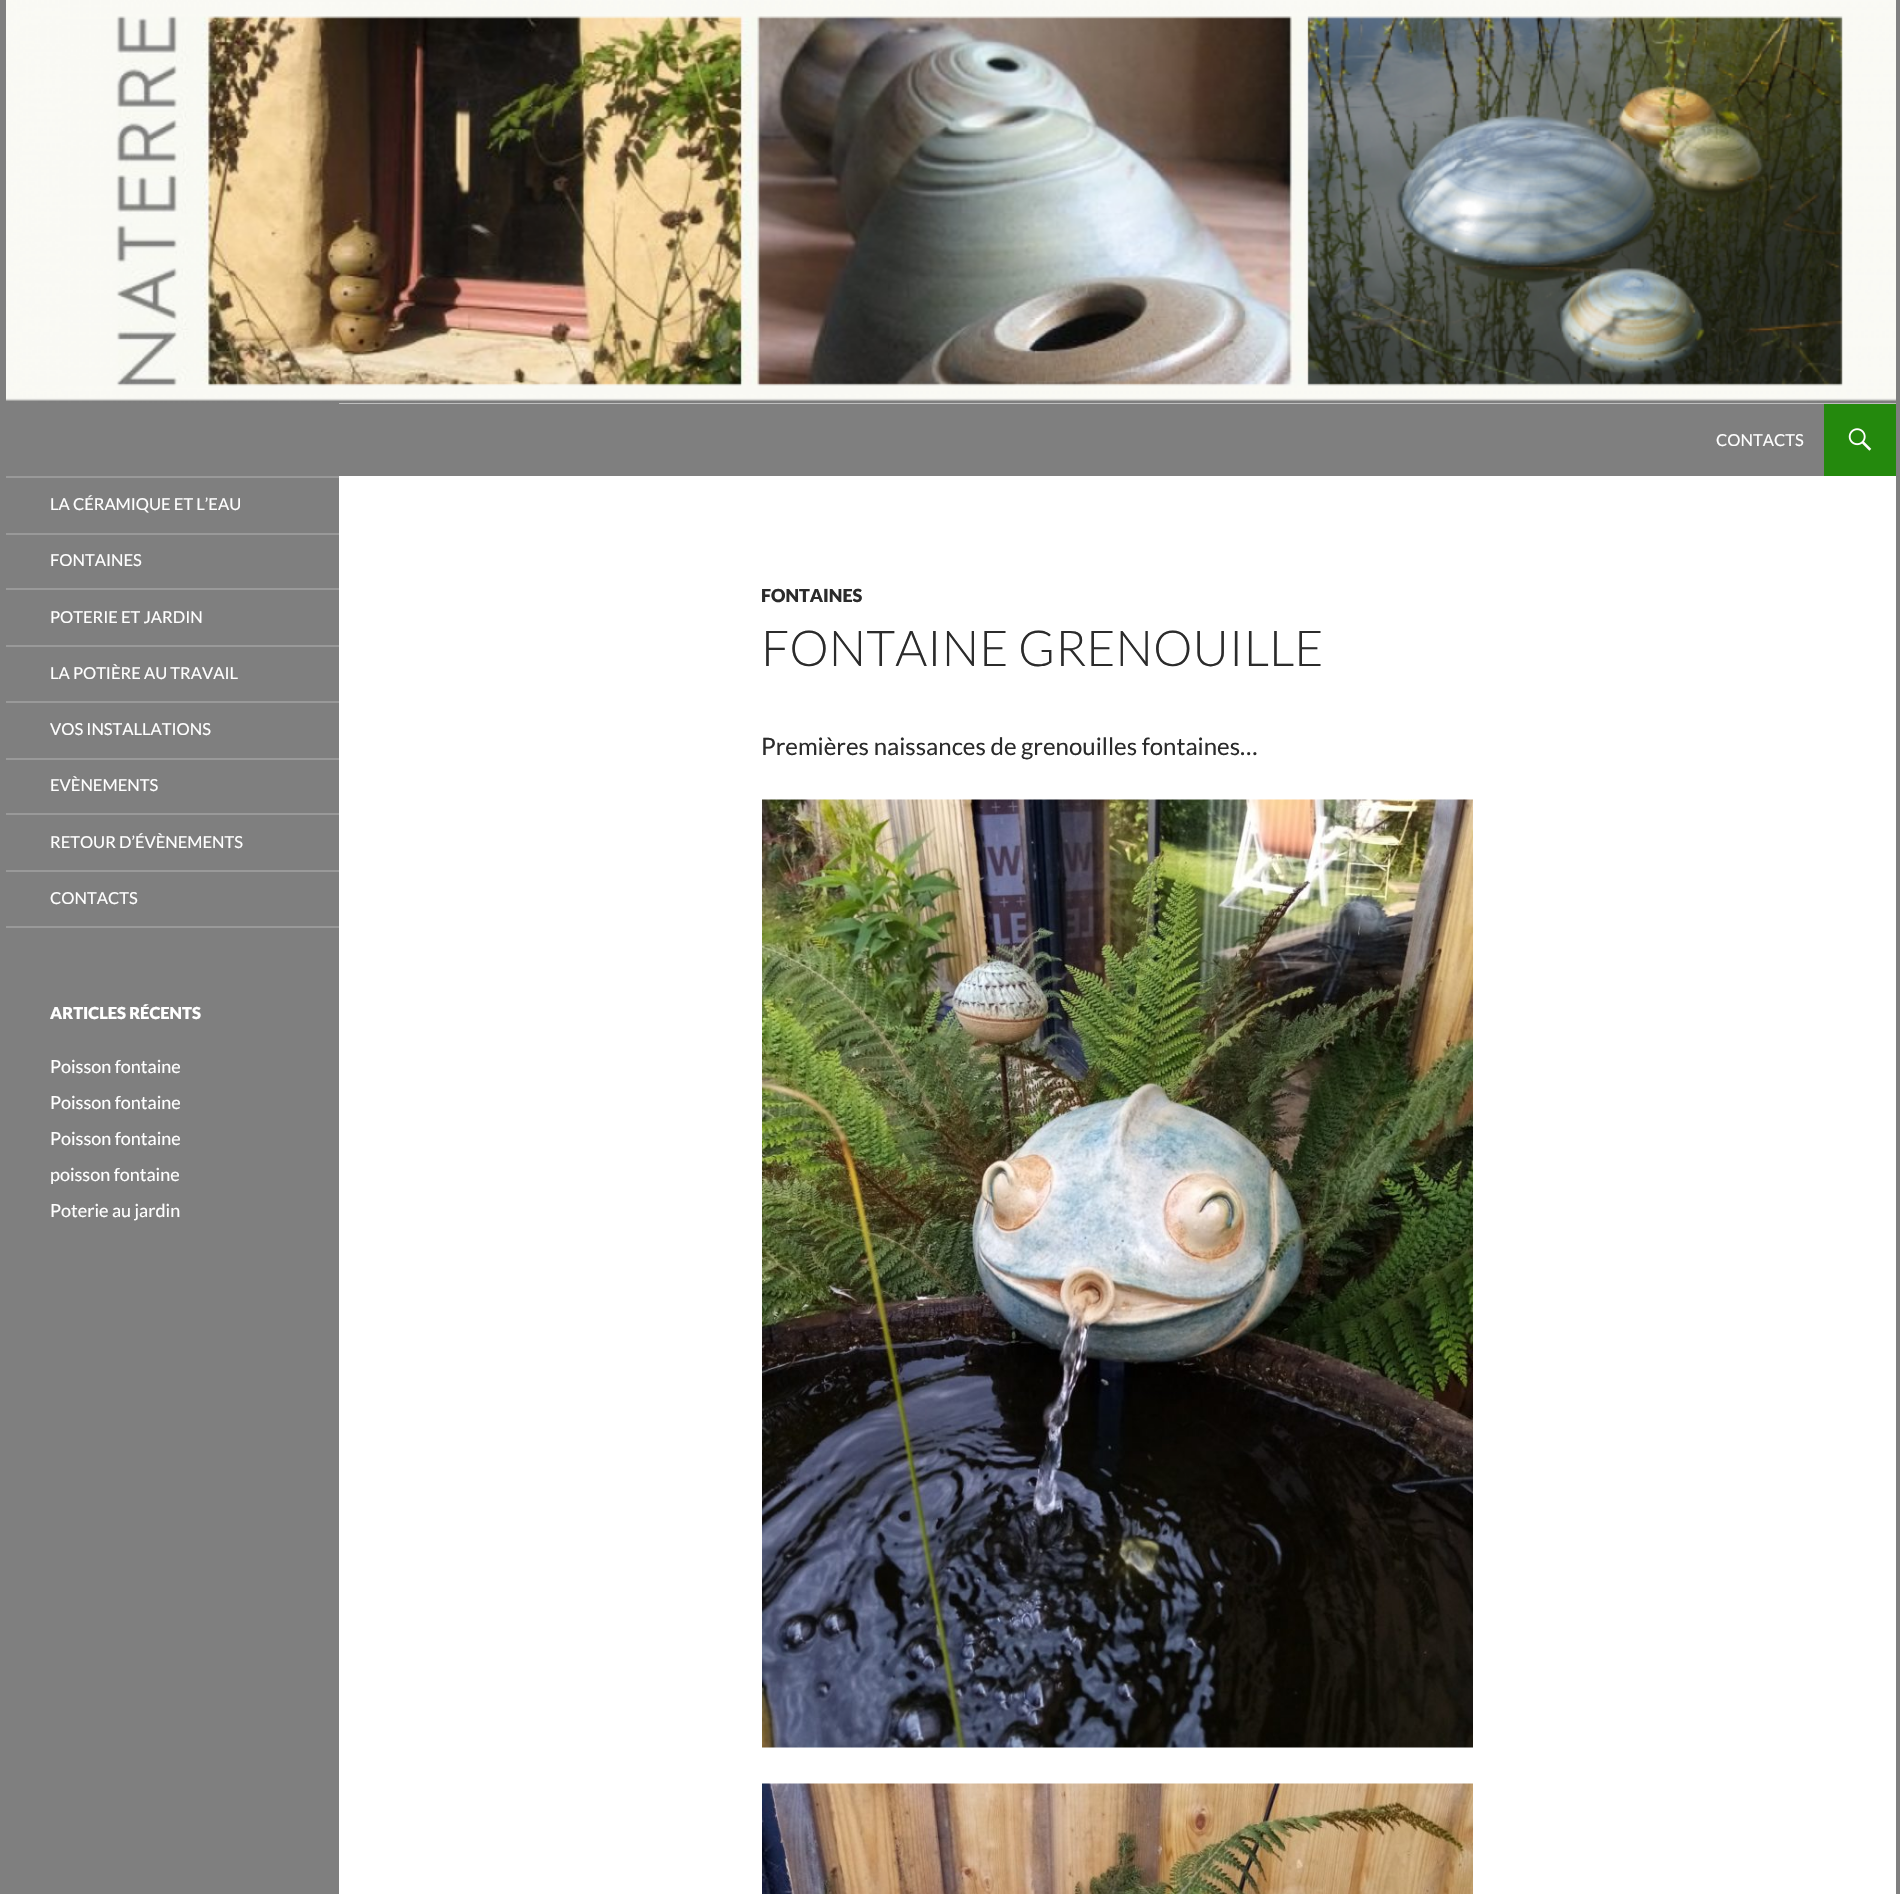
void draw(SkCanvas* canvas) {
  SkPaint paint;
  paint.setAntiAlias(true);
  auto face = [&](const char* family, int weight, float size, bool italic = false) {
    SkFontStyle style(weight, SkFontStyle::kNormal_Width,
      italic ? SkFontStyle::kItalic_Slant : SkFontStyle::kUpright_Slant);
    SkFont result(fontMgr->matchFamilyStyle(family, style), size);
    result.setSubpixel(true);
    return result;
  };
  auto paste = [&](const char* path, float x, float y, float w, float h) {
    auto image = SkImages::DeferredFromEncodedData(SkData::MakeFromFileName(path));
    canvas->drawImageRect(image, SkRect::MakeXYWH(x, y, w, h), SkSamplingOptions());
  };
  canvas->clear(0xff7f7f7f);
  paint.setColor(0xffffffff);
  canvas->drawRect(SkRect::MakeXYWH(339, 403, 1557, 1491), paint);
  paste("img/1.png", 6, 0, 1890, 404);
  paint.setColor(0xff7f7f7f);
  canvas->drawRect(SkRect::MakeXYWH(339, 404, 1485, 72), paint);
  paint.setColor(0xff24890d);
  canvas->drawRect(SkRect::MakeXYWH(1824, 404, 72, 72), paint);
  paste("img/2.png", 1848, 428, 24, 23);
  {
    const struct { float x, y, w, h; SkColor color; } items[] = {
      {6, 926, 333, 2, 0xff999999},
      {6, 476, 333, 2, 0xff999999},
      {6, 533, 333, 2, 0xff999999},
      {6, 588, 333, 2, 0xff999999},
      {6, 645, 333, 2, 0xff999999},
      {6, 701, 333, 2, 0xff999999},
      {6, 758, 333, 2, 0xff999999},
      {6, 813, 333, 2, 0xff999999},
      {6, 870, 333, 2, 0xff999999},
    };
    for (auto [x, y, w, h, color] : items) {
      paint.setColor(color);
      canvas->drawRect(SkRect::MakeXYWH(x, y, w, h), paint);
    }
  }
  paste("img/3.png", 762, 799, 711, 949);
  paste("img/4.png", 762, 1783, 711, 111);
  auto f0 = face("Lato", 400, 16.5f);
  paint.setColor(0xffffffff);
  {
    const struct { const char* s; float x, y; } items[] = {
      {"CONTACTS", 1716, 446},
      {"LA CÉRAMIQUE ET L’EAU", 50, 510},
      {"FONTAINES", 50, 566},
      {"POTERIE ET JARDIN", 50, 623},
      {"LA POTIÈRE AU TRAVAIL", 50, 679},
      {"VOS INSTALLATIONS", 50, 735},
      {"EVÈNEMENTS", 50, 791},
      {"RETOUR D’ÉVÈNEMENTS", 50, 848},
      {"CONTACTS", 50, 904},
    };
    for (auto [s, x, y] : items) {
      canvas->drawString(s, x, y, f0, paint);
    }
  }
  auto f1 = face("Lato", 900, 16.5f);
  canvas->drawString("ARTICLES RÉCENTS", 50, 1019, f1, paint);
  auto f2 = face("Lato", 400, 18);
  {
    const struct { const char* s; float x, y; } items[] = {
      {"Poisson fontaine", 50, 1073},
      {"Poisson fontaine", 50, 1109},
      {"Poisson fontaine", 50, 1145},
      {"poisson fontaine", 50, 1181},
      {"Poterie au jardin", 50, 1217},
    };
    for (auto [s, x, y] : items) {
      canvas->drawString(s, x, y, f2, paint);
    }
  }
  auto f3 = face("Lato", 900, 18);
  paint.setColor(0xff2b2b2b);
  canvas->drawString("FONTAINES", 761, 602, f3, paint);
  auto f4 = face("Lato", 300, 49.5f);
  canvas->drawString("FONTAINE GRENOUILLE", 761, 666, f4, paint);
  auto f5 = face("Lato", 400, 24);
  canvas->drawString("Premières naissances de grenouilles fontaines…", 761, 755, f5, paint);
}
